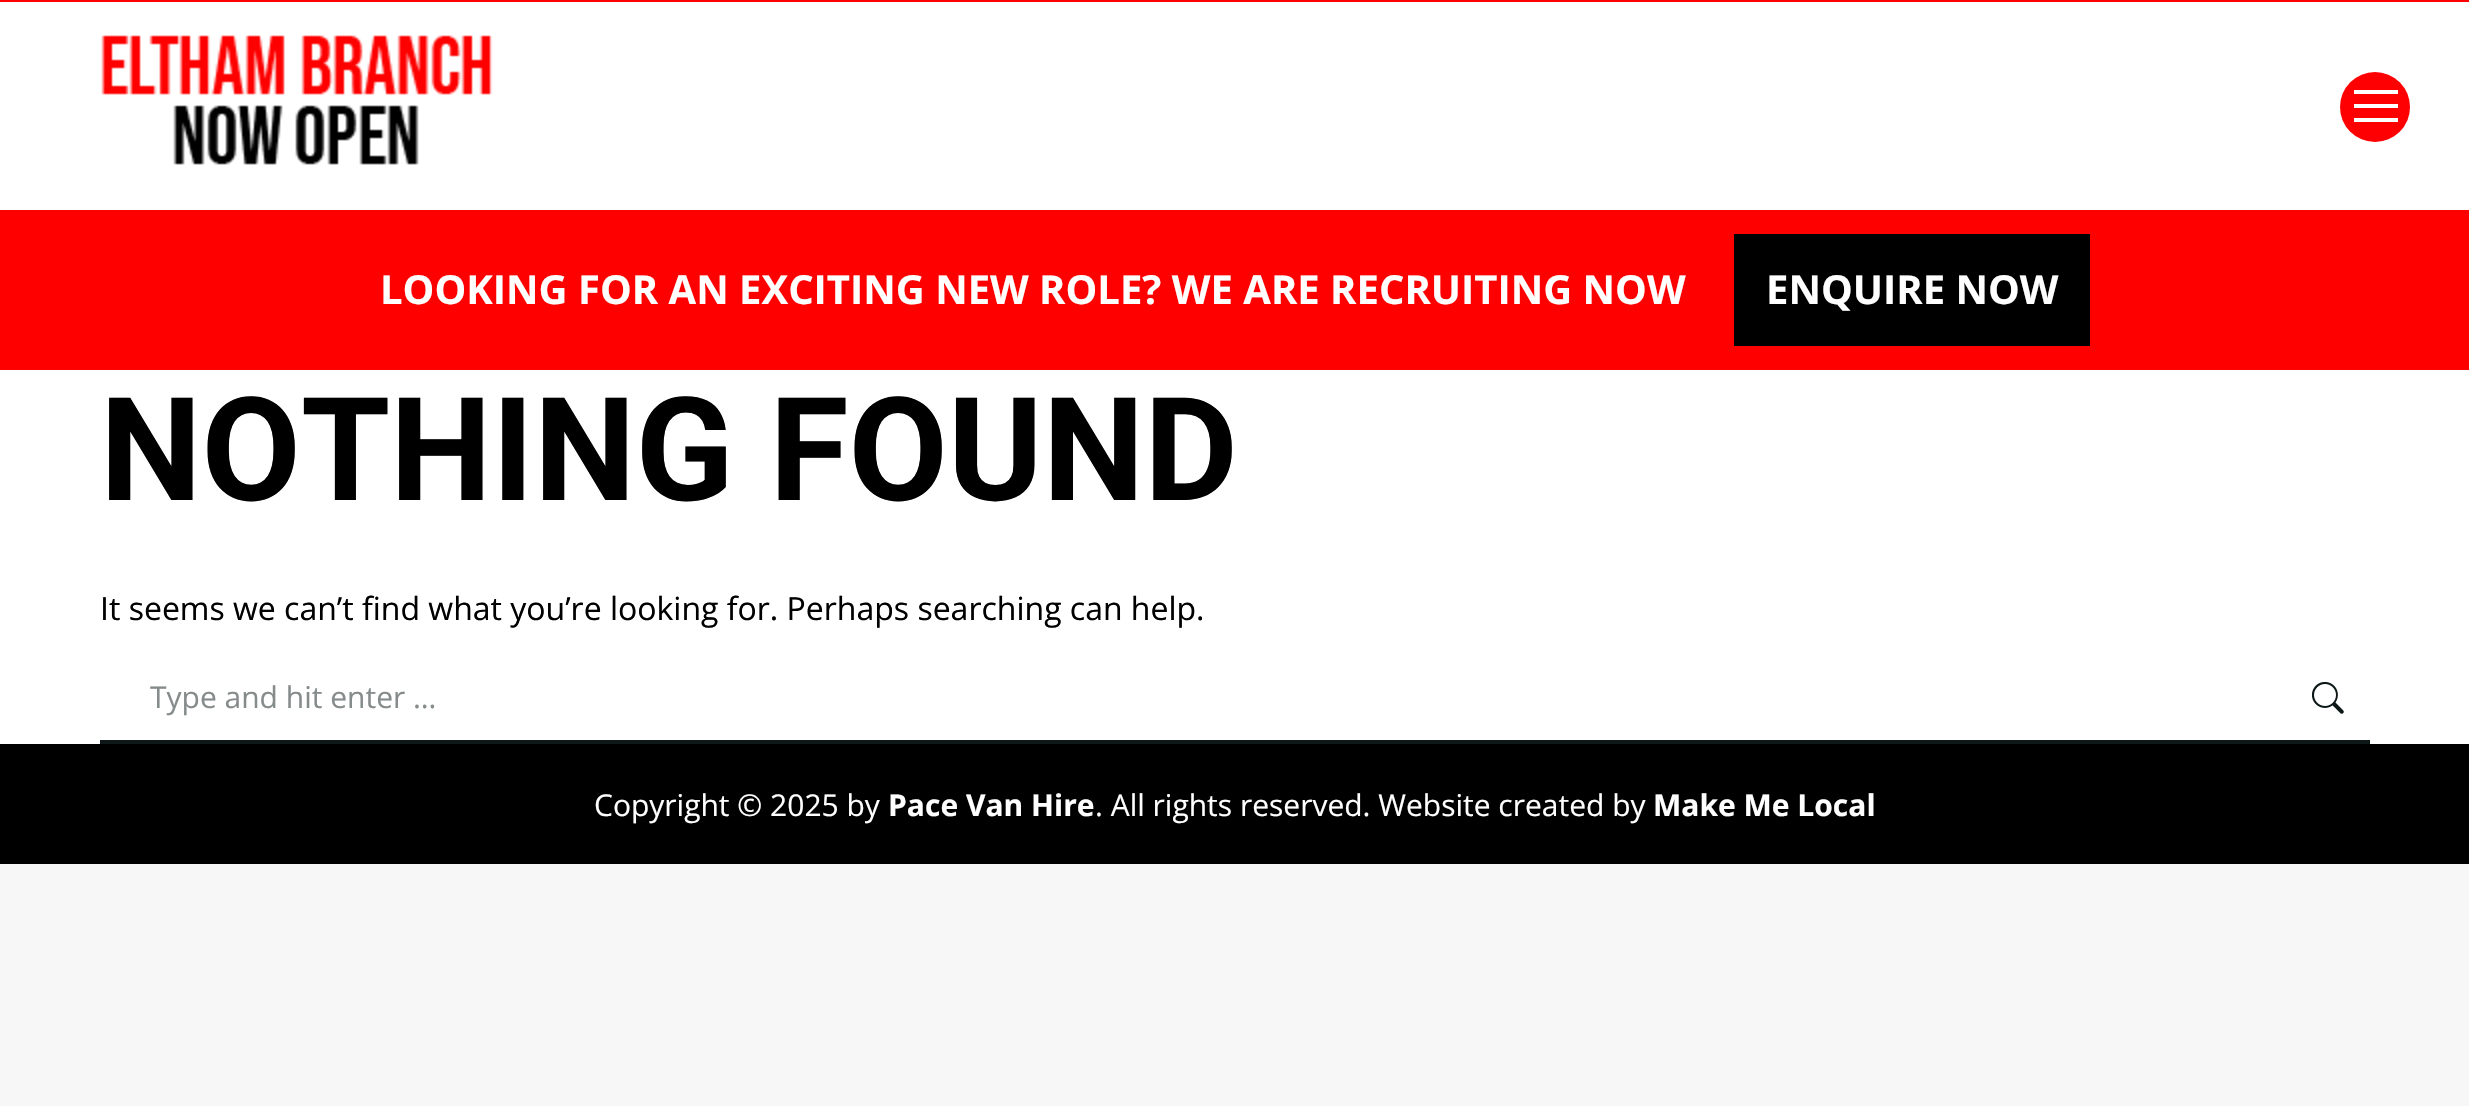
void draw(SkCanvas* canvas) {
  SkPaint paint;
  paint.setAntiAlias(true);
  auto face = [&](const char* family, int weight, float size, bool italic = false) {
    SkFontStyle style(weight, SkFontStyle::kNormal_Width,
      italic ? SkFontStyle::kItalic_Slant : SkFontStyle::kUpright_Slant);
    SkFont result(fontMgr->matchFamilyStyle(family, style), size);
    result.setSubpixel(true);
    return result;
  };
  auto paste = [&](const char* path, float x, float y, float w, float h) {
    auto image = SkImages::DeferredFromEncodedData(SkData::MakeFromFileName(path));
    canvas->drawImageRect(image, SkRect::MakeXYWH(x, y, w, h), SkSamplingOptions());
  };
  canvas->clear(0xfff7f7f7);
  paint.setColor(0xfffe0002);
  canvas->drawRect(SkRect::MakeXYWH(0, 0, 2469, 2), paint);
  paint.setColor(0xffffffff);
  canvas->drawRect(SkRect::MakeXYWH(0, 2, 2469, 742), paint);
  paste("img/1.png", 101, 35, 392, 130);
  paint.setColor(0xfffe0002);
  canvas->drawCircle(2375, 107, 35, paint);
  {
    const struct { float x, y, w, h; SkColor color; } items[] = {
      {2354, 90, 44, 4, 0xffffffff},
      {2354, 104, 44, 4, 0xffffffff},
      {2354, 118, 44, 4, 0xffffffff},
      {0, 210, 2469, 160, 0xfffe0000},
      {1734, 234, 356, 112, 0xff000000},
      {100, 740, 2270, 4, 0xff0d1717},
    };
    for (auto [x, y, w, h, color] : items) {
      paint.setColor(color);
      canvas->drawRect(SkRect::MakeXYWH(x, y, w, h), paint);
    }
  }
  paste("img/2.png", 2312, 682, 32, 32);
  paint.setColor(0xff000000);
  canvas->drawRect(SkRect::MakeXYWH(0, 744, 2469, 120), paint);
  auto f0 = face("Open Sans", 700, 40);
  paint.setColor(0xffffffff);
  canvas->drawString("LOOKING FOR AN EXCITING NEW ROLE? WE ARE RECRUITING NOW", 380, 304, f0, paint);
  canvas->drawString("ENQUIRE NOW", 1766, 304, f0, paint);
  auto f1 = face("Roboto", 700, 144);
  paint.setColor(0xff000000);
  canvas->drawString("NOTHING FOUND", 100, 500, f1, paint);
  auto f2 = face("Open Sans", 400, 32);
  canvas->drawString("It seems we can’t find what you’re looking for. Perhaps searching can help.", 100, 620, f2, paint);
  auto f3 = face("Open Sans", 400, 30);
  paint.setColor(0xff868b8b);
  canvas->drawString("Type and hit enter …", 150, 708, f3, paint);
  paint.setColor(0xffffffff);
  canvas->drawString("Copyright © 2025 by", 594, 816, f3, paint);
  auto f4 = face("Open Sans", 700, 30);
  canvas->drawString("Pace Van Hire", 888, 816, f4, paint);
  canvas->drawString(". All rights reserved. Website created by", 1095, 816, f3, paint);
  canvas->drawString("Make Me Local", 1653, 816, f4, paint);
}
